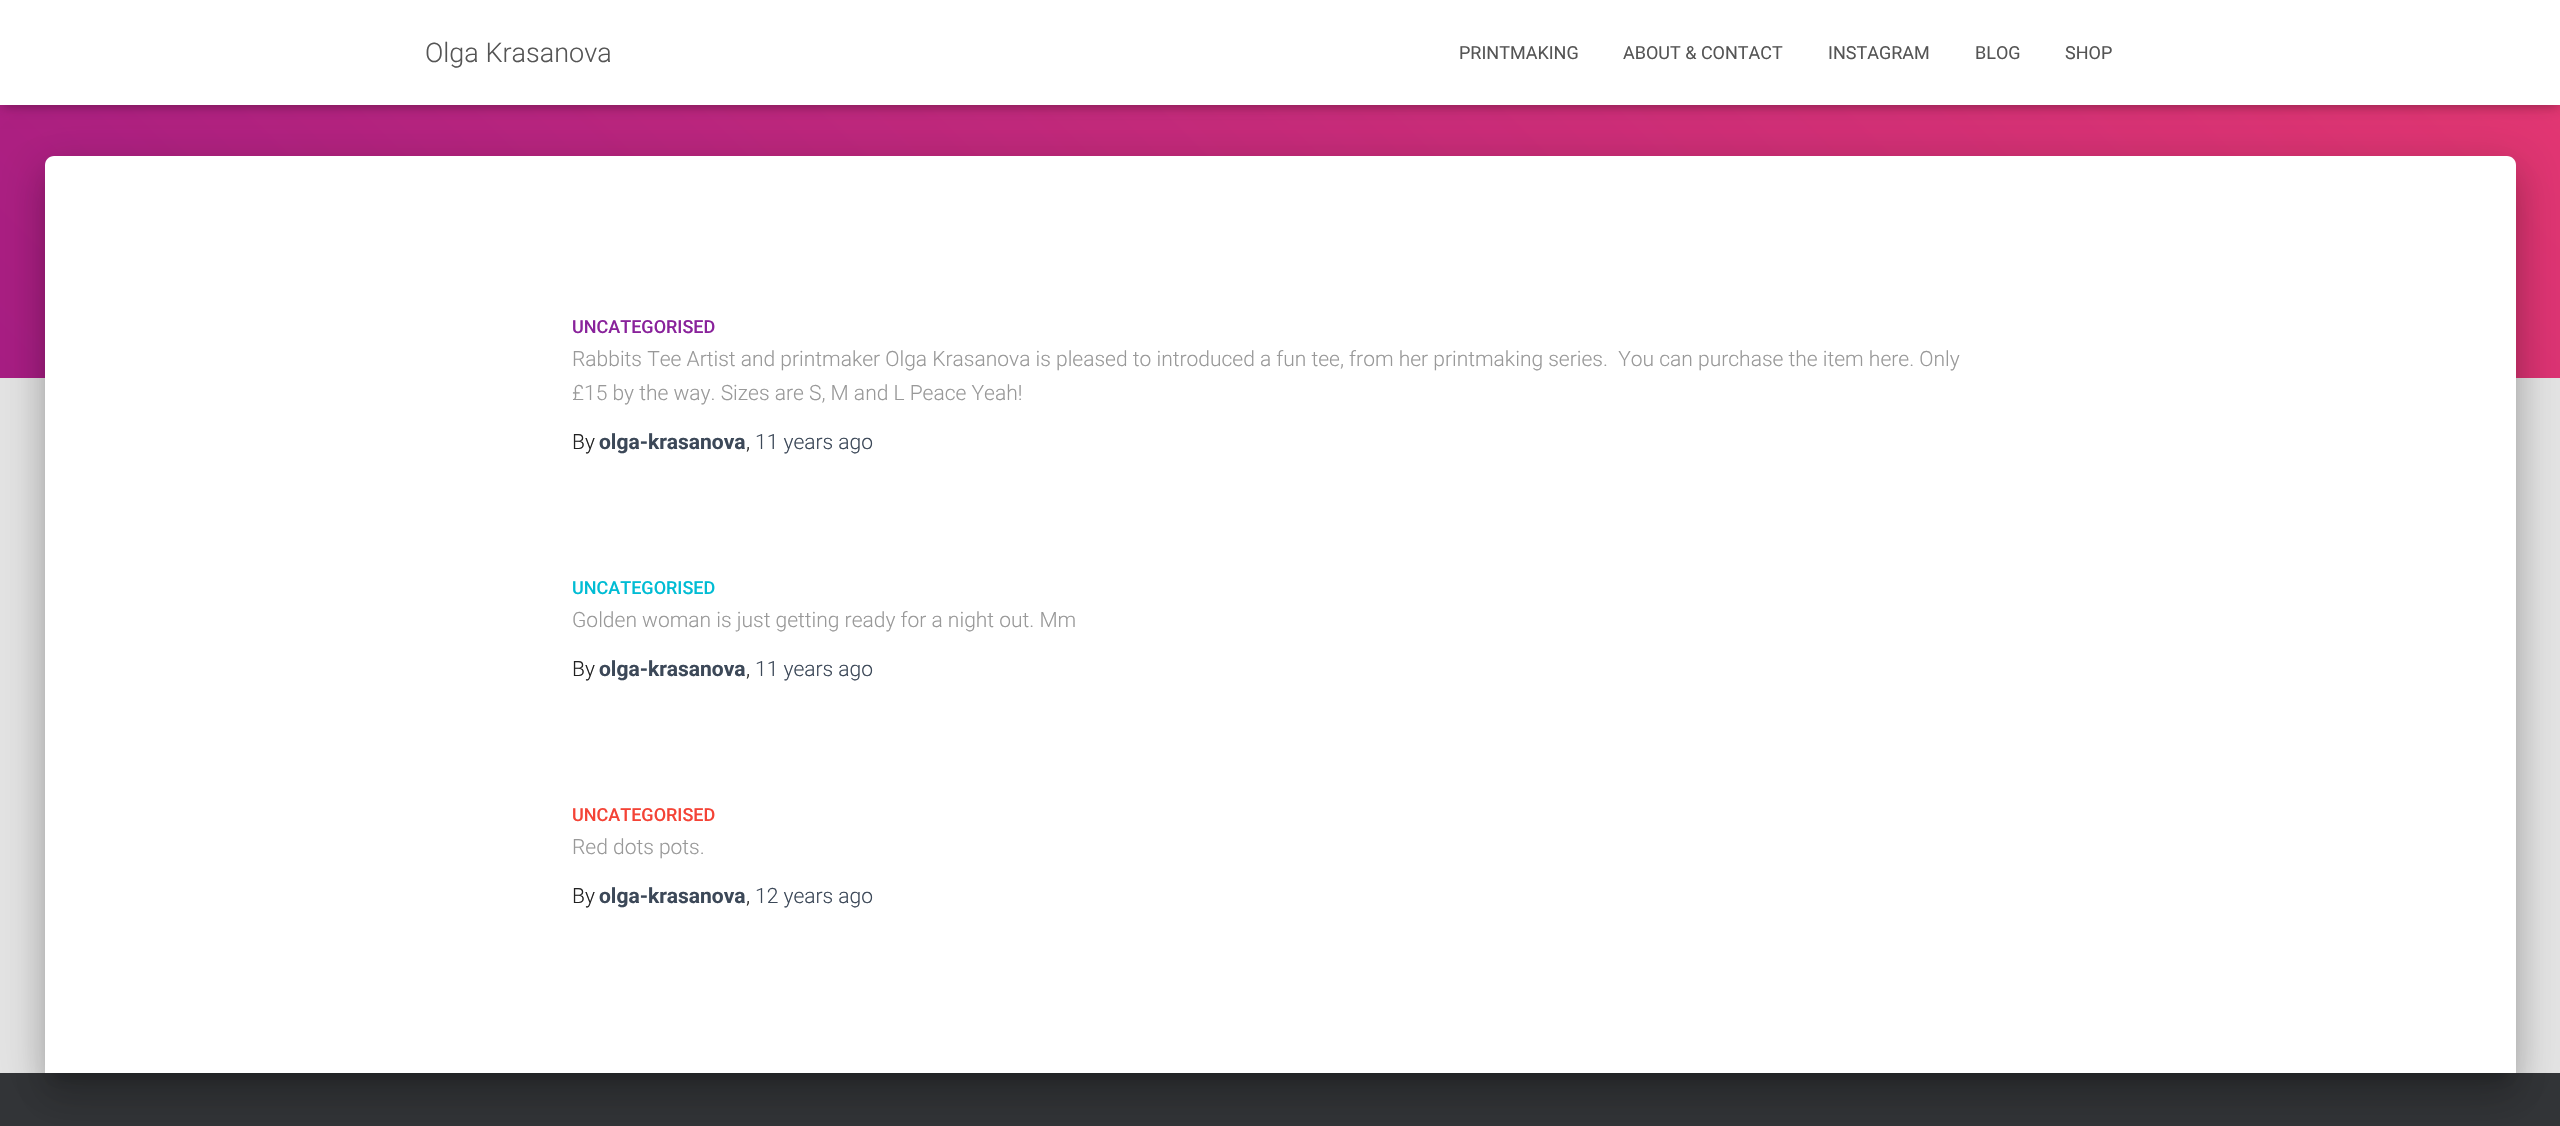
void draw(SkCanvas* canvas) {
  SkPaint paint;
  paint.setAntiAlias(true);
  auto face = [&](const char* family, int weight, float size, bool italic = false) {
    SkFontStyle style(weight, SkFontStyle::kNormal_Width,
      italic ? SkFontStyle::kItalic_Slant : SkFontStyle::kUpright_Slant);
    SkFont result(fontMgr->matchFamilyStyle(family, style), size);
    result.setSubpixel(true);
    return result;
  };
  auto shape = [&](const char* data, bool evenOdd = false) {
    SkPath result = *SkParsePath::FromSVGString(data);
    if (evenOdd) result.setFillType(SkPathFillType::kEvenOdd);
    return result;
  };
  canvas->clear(0xffe5e5e5);
  {
    const SkColor colors[] = {0xffa81d84, 0xffea396f};
    const float stops[] = {0, 1};
    const SkPoint ends[] = {{479, 858}, {2081, -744}};
    paint.setShader(SkGradientShader::MakeLinear(ends, colors, stops, 2, SkTileMode::kClamp));
    paint.setAlpha(255);
  }
  canvas->drawRect(SkRect::MakeXYWH(0, 105, 2560, 273), paint);
  paint.setShader(nullptr);
  paint.setColor(0x1a000000);
  paint.setMaskFilter(SkMaskFilter::MakeBlur(kNormal_SkBlurStyle, 4));
  canvas->drawRect(SkRect::MakeXYWH(3, 9, 2555, 99), paint);
  paint.setMaskFilter(nullptr);
  paint.setColor(0x1f000000);
  paint.setMaskFilter(SkMaskFilter::MakeBlur(kNormal_SkBlurStyle, 7.5f));
  canvas->drawRect(SkRect::MakeXYWH(0, 2, 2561, 105), paint);
  paint.setMaskFilter(nullptr);
  paint.setColor(0x6b000000);
  paint.setMaskFilter(SkMaskFilter::MakeBlur(kNormal_SkBlurStyle, 7.5f));
  canvas->drawRect(SkRect::MakeXYWH(9, 11, 2543, 87), paint);
  paint.setMaskFilter(nullptr);
  paint.setColor(0xff323437);
  canvas->drawRect(SkRect::MakeXYWH(0, 1073, 2560, 53), paint);
  paint.setColor(0x1f000000);
  paint.setMaskFilter(SkMaskFilter::MakeBlur(kNormal_SkBlurStyle, 22.5f));
  canvas->drawRoundRect(SkRect::MakeXYWH(38, 158, 2485, 931), 17, 17, paint);
  paint.setMaskFilter(nullptr);
  paint.setColor(0xffffffff);
  canvas->drawRect(SkRect::MakeXYWH(0, 0, 2560, 105), paint);
  paint.setColor(0x33000000);
  paint.setMaskFilter(SkMaskFilter::MakeBlur(kNormal_SkBlurStyle, 7.5f));
  canvas->drawRoundRect(SkRect::MakeXYWH(53, 176, 2455, 901), 1.5f, 1.5f, paint);
  paint.setMaskFilter(nullptr);
  paint.setColor(0x24000000);
  paint.setMaskFilter(SkMaskFilter::MakeBlur(kNormal_SkBlurStyle, 18));
  canvas->drawRoundRect(SkRect::MakeXYWH(42, 177, 2477, 923), 12, 12, paint);
  paint.setMaskFilter(nullptr);
  paint.setColor(0xffffffff);
  canvas->drawPath(shape("M54 156H2507C2512 156 2516 160 2516 165V1073H45V165C45 160 49 156 54 156Z"), paint);
  auto f0 = face("Roboto", 300, 27);
  paint.setColor(0xff555555);
  canvas->drawString("Olga Krasanova", 425, 62, f0, paint);
  auto f1 = face("Roboto", 400, 18);
  {
    const struct { const char* s; float x, y; } items[] = {
      {"PRINTMAKING", 1459, 59},
      {"ABOUT & CONTACT", 1623, 59},
      {"INSTAGRAM", 1828, 59},
      {"BLOG", 1975, 59},
      {"SHOP", 2065, 59},
    };
    for (auto [s, x, y] : items) {
      canvas->drawString(s, x, y, f1, paint);
    }
  }
  auto f2 = face("Roboto", 500, 18);
  paint.setColor(0xff89229b);
  canvas->drawString("UNCATEGORISED", 572, 333, f2, paint);
  auto f3 = face("Roboto", 300, 21);
  paint.setColor(0xff999999);
  canvas->drawString("Rabbits Tee Artist and printmaker Olga Krasanova is pleased to introduced a fun tee, from her printmaking series.  You can purchase the item here. Only", 572, 366, f3, paint);
  canvas->drawString("£15 by the way. Sizes are S, M and L Peace Yeah!", 572, 400, f3, paint);
  paint.setColor(0xff212121);
  canvas->drawString("By", 572, 449, f3, paint);
  auto f4 = face("Roboto", 700, 21);
  paint.setColor(0xff3c4858);
  canvas->drawString("olga-krasanova", 599, 449, f4, paint);
  paint.setColor(0xff212121);
  canvas->drawString(",", 746, 449, f3, paint);
  paint.setColor(0xff3c4858);
  canvas->drawString("11 years ago", 755, 449, f3, paint);
  paint.setColor(0xff00bcd4);
  canvas->drawString("UNCATEGORISED", 572, 594, f2, paint);
  paint.setColor(0xff999999);
  canvas->drawString("Golden woman is just getting ready for a night out. Mm", 572, 627, f3, paint);
  paint.setColor(0xff212121);
  canvas->drawString("By", 572, 676, f3, paint);
  paint.setColor(0xff3c4858);
  canvas->drawString("olga-krasanova", 599, 676, f4, paint);
  paint.setColor(0xff212121);
  canvas->drawString(",", 746, 676, f3, paint);
  paint.setColor(0xff3c4858);
  canvas->drawString("11 years ago", 755, 676, f3, paint);
  paint.setColor(0xfff44336);
  canvas->drawString("UNCATEGORISED", 572, 821, f2, paint);
  paint.setColor(0xff999999);
  canvas->drawString("Red dots pots.", 572, 854, f3, paint);
  paint.setColor(0xff212121);
  canvas->drawString("By", 572, 903, f3, paint);
  paint.setColor(0xff3c4858);
  canvas->drawString("olga-krasanova", 599, 903, f4, paint);
  paint.setColor(0xff212121);
  canvas->drawString(",", 746, 903, f3, paint);
  paint.setColor(0xff3c4858);
  canvas->drawString("12 years ago", 755, 903, f3, paint);
}
